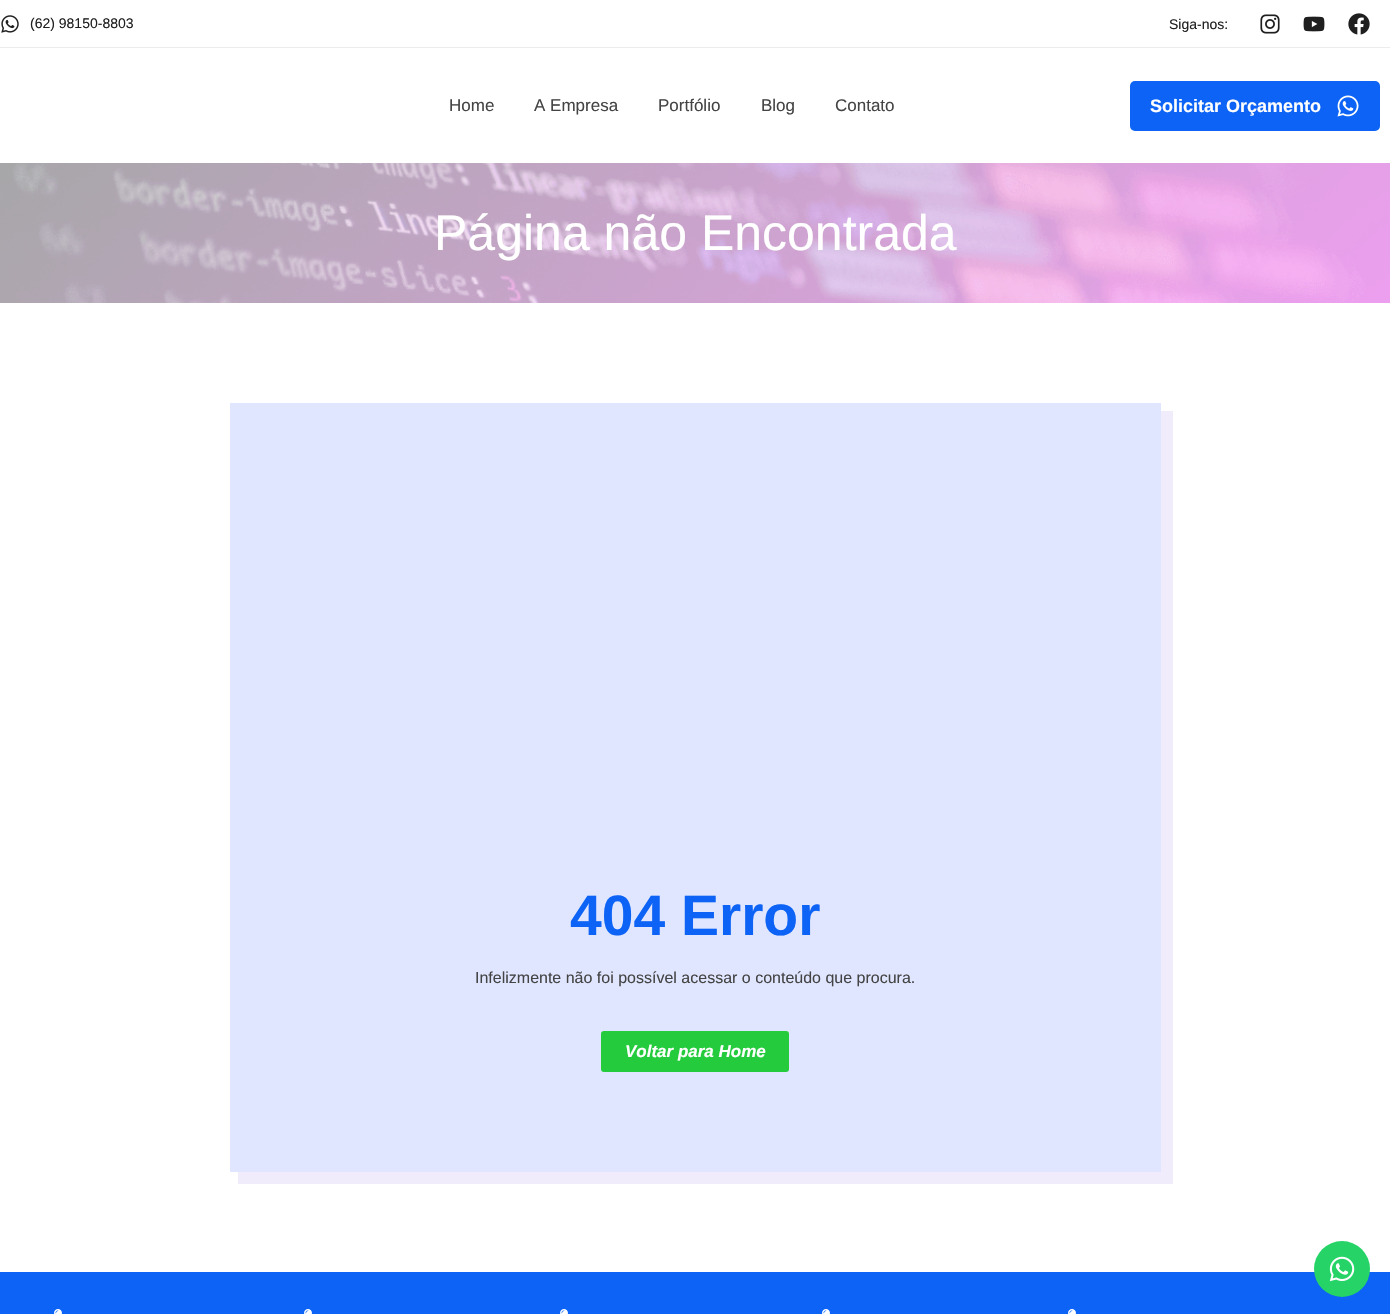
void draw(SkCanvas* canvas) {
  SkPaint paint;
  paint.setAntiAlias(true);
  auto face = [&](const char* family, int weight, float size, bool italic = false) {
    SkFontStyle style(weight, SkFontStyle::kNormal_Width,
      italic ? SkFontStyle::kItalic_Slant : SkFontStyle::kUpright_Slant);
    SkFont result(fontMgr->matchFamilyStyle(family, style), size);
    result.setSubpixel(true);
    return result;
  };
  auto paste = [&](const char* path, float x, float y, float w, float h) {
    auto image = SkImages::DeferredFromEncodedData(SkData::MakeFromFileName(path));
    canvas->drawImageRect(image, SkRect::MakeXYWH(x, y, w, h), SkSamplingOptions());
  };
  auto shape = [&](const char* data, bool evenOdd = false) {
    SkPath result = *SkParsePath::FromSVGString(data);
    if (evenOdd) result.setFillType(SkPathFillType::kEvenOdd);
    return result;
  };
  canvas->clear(0xffffffff);
  paint.setColor(0xffececec);
  canvas->drawRect(SkRect::MakeXYWH(0, 47, 1390, 1), paint);
  paste("img/1.png", 1, 15, 18, 18);
  paste("img/2.png", 1260, 14, 20, 20);
  paste("img/3.png", 1303, 16, 22, 16);
  paste("img/4.png", 1348, 13, 22, 22);
  paint.setColor(0xff0c63f5);
  canvas->drawRoundRect(SkRect::MakeXYWH(1130, 81, 250, 50), 5, 5, paint);
  paste("img/5.png", 1337, 95, 22, 22);
  paste("img/6.png", 0, 163, 1390, 140);
  paint.setColor(0xfff0ecfc);
  canvas->drawPath(shape("M238 1172V1184H1173V411H1161V1172Z"), paint);
  paint.setColor(0xffe0e6ff);
  canvas->drawRect(SkRect::MakeXYWH(230, 403, 931, 769), paint);
  paint.setColor(0xff24cc3d);
  canvas->drawRoundRect(SkRect::MakeXYWH(601, 1031, 188, 41), 3, 3, paint);
  paint.setColor(0xff0c63f5);
  canvas->drawRect(SkRect::MakeXYWH(0, 1272, 1390, 42), paint);
  paint.setColor(0xff25d366);
  canvas->drawCircle(1342, 1269, 28, paint);
  paste("img/7.png", 1329, 1256, 26, 26);
  paste("img/8.png", 54, 1309, 8, 5);
  paste("img/8.png", 304, 1309, 8, 5);
  paste("img/8.png", 560, 1309, 8, 5);
  paste("img/8.png", 822, 1309, 8, 5);
  paste("img/8.png", 1068, 1309, 8, 5);
  auto f0 = face("Liberation Sans", 400, 14);
  paint.setColor(0xff1f1f1f);
  canvas->drawString("(62) 98150-8803", 30, 28, f0, paint);
  canvas->drawString("Siga-nos:", 1169, 29, f0, paint);
  auto f1 = face("Liberation Sans", 400, 17);
  paint.setColor(0xff444444);
  {
    const struct { const char* s; float x, y; } items[] = {
      {"Home", 449, 111},
      {"A Empresa", 534, 111},
      {"Portfólio", 658, 111},
      {"Blog", 761, 111},
      {"Contato", 835, 111},
    };
    for (auto [s, x, y] : items) {
      canvas->drawString(s, x, y, f1, paint);
    }
  }
  auto f2 = face("Liberation Sans", 700, 18);
  paint.setColor(0xffffffff);
  canvas->drawString("Solicitar Orçamento", 1150, 112, f2, paint);
  auto f3 = face("Liberation Sans", 400, 50);
  canvas->drawString("Página não Encontrada", 434, 250, f3, paint);
  auto f4 = face("Liberation Sans", 700, 57);
  paint.setColor(0xff0c63f5);
  canvas->drawString("404 Error", 570, 935, f4, paint);
  auto f5 = face("Liberation Sans", 400, 16);
  paint.setColor(0xff444444);
  canvas->drawString("Infelizmente não foi possível acessar o conteúdo que procura.", 475, 983, f5, paint);
  auto f6 = face("Liberation Sans", 700, 17, true);
  paint.setColor(0xffffffff);
  canvas->drawString("Voltar para Home", 625, 1057, f6, paint);
}
